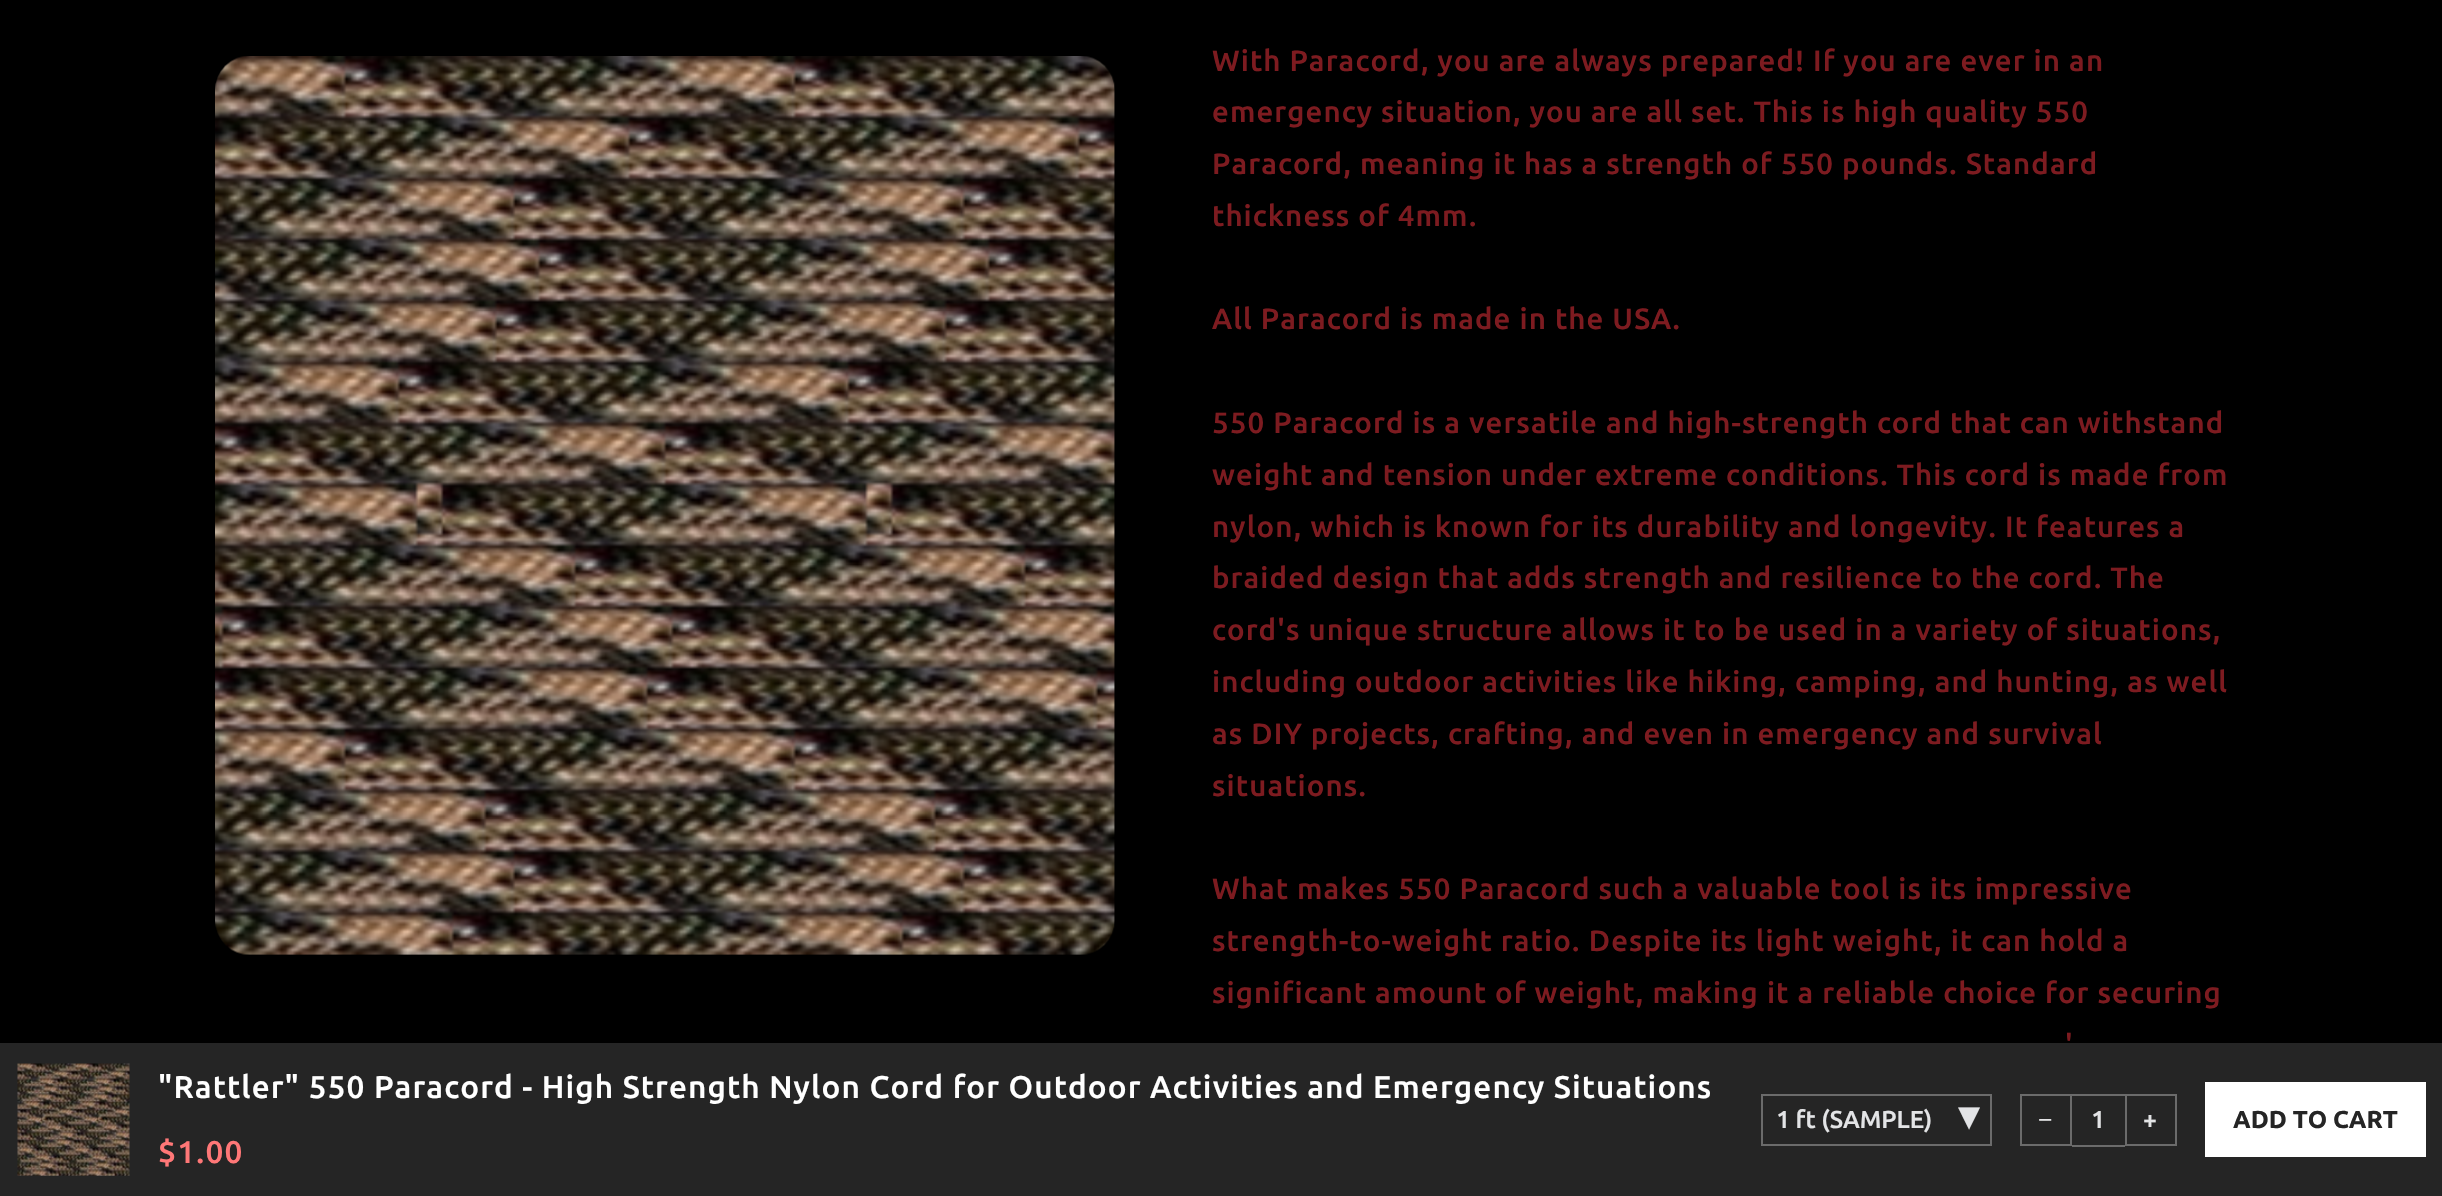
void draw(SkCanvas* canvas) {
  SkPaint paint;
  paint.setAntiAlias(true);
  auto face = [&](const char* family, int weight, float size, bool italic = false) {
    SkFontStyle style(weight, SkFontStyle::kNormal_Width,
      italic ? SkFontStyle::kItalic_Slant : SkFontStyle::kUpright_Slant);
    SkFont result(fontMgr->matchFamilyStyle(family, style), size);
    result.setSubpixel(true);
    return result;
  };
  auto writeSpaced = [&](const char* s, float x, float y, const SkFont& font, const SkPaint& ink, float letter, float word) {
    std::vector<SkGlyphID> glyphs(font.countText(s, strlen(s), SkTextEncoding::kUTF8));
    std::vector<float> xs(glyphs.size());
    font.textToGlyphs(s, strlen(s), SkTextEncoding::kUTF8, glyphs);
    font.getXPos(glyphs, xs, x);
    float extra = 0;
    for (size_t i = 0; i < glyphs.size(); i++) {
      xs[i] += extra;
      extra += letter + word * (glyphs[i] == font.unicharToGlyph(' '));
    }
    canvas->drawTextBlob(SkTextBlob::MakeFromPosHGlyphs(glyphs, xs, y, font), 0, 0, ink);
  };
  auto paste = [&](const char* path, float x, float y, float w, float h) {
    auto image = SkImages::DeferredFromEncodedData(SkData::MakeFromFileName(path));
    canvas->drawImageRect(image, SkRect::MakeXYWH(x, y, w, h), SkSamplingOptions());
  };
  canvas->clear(0xff000000);
  paste("img/1.png", 215, 56, 900, 899);
  paint.setColor(0xff252525);
  canvas->drawRect(SkRect::MakeXYWH(0, 1043, 2442, 153), paint);
  paste("img/2.png", 17, 1063, 113, 113);
  paint.setStroke(true);
  paint.setStrokeWidth(2);
  paint.setColor(0xff6b6b6b);
  canvas->drawRect(SkRect::MakeXYWH(1762, 1095, 229, 50), paint);
  canvas->drawRect(SkRect::MakeXYWH(2021, 1095, 50, 50), paint);
  paint.setStroke(false);
  canvas->drawRect(SkRect::MakeXYWH(2072, 1094, 53, 2), paint);
  canvas->drawRect(SkRect::MakeXYWH(2072, 1145, 53, 2), paint);
  paint.setStroke(true);
  canvas->drawRect(SkRect::MakeXYWH(2126, 1095, 50, 50), paint);
  paint.setStroke(false);
  paint.setColor(0xffffffff);
  canvas->drawRect(SkRect::MakeXYWH(2205, 1082, 221, 75), paint);
  auto f0 = face("Ubuntu", 500, 29.4f);
  paint.setColor(0xff7d1b20);
  {
    const struct { const char* s; float x, y; } items[] = {
      {"With Paracord, you are always prepared! If you are ever in an", 1212, 71},
      {"emergency situation, you are all set. This is high quality 550", 1212, 122},
      {"Paracord, meaning it has a strength of 550 pounds. Standard", 1212, 174},
      {"thickness of 4mm.", 1212, 226},
      {"All Paracord is made in the USA.", 1212, 329},
      {"550 Paracord is a versatile and high-strength cord that can withstand", 1212, 433},
      {"weight and tension under extreme conditions. This cord is made from", 1212, 485},
      {"nylon, which is known for its durability and longevity. It features a", 1212, 537},
      {"braided design that adds strength and resilience to the cord. The", 1212, 588},
      {"cord's unique structure allows it to be used in a variety of situations,", 1212, 640},
      {"including outdoor activities like hiking, camping, and hunting, as well", 1212, 692},
      {"as DIY projects, crafting, and even in emergency and survival", 1212, 744},
      {"situations.", 1212, 796},
      {"What makes 550 Paracord such a valuable tool is its impressive", 1212, 899},
      {"strength-to-weight ratio. Despite its light weight, it can hold a", 1212, 951},
      {"significant amount of weight, making it a reliable choice for securing", 1212, 1003},
      {"'", 2065, 1055},
    };
    for (auto [s, x, y] : items) {
      writeSpaced(s, x, y, f0, paint, 1.1f, 0);
    }
  }
  auto f1 = face("Ubuntu", 500, 31.5f);
  paint.setColor(0xffffffff);
  writeSpaced("\"Rattler\" 550 Paracord - High Strength Nylon Cord for Outdoor Activities and Emergency Situations", 158, 1098, f1, paint, 1.1f, 0);
  paint.setColor(0xffff7777);
  writeSpaced("$1.00", 158, 1163, f1, paint, 1.1f, 0);
  auto f2 = face("Ubuntu", 500, 24.5f);
  paint.setColor(0xffe3e4e6);
  canvas->drawString("1 ft (SAMPLE)", 1776, 1128, f2, paint);
  auto f3 = face("DejaVu Sans", 400, 44);
  writeSpaced("▾", 1958, 1130, f3, paint, 1.1f, 0);
  auto f4 = face("Liberation Sans", 400, 24.5f);
  canvas->drawString("−", 2038, 1128, f4, paint);
  canvas->drawString("1", 2091, 1128, f2, paint);
  canvas->drawString("+", 2143, 1128, f2, paint);
  auto f5 = face("Ubuntu", 700, 24.5f);
  paint.setColor(0xff252525);
  canvas->drawString("ADD TO CART", 2233, 1128, f5, paint);
}
